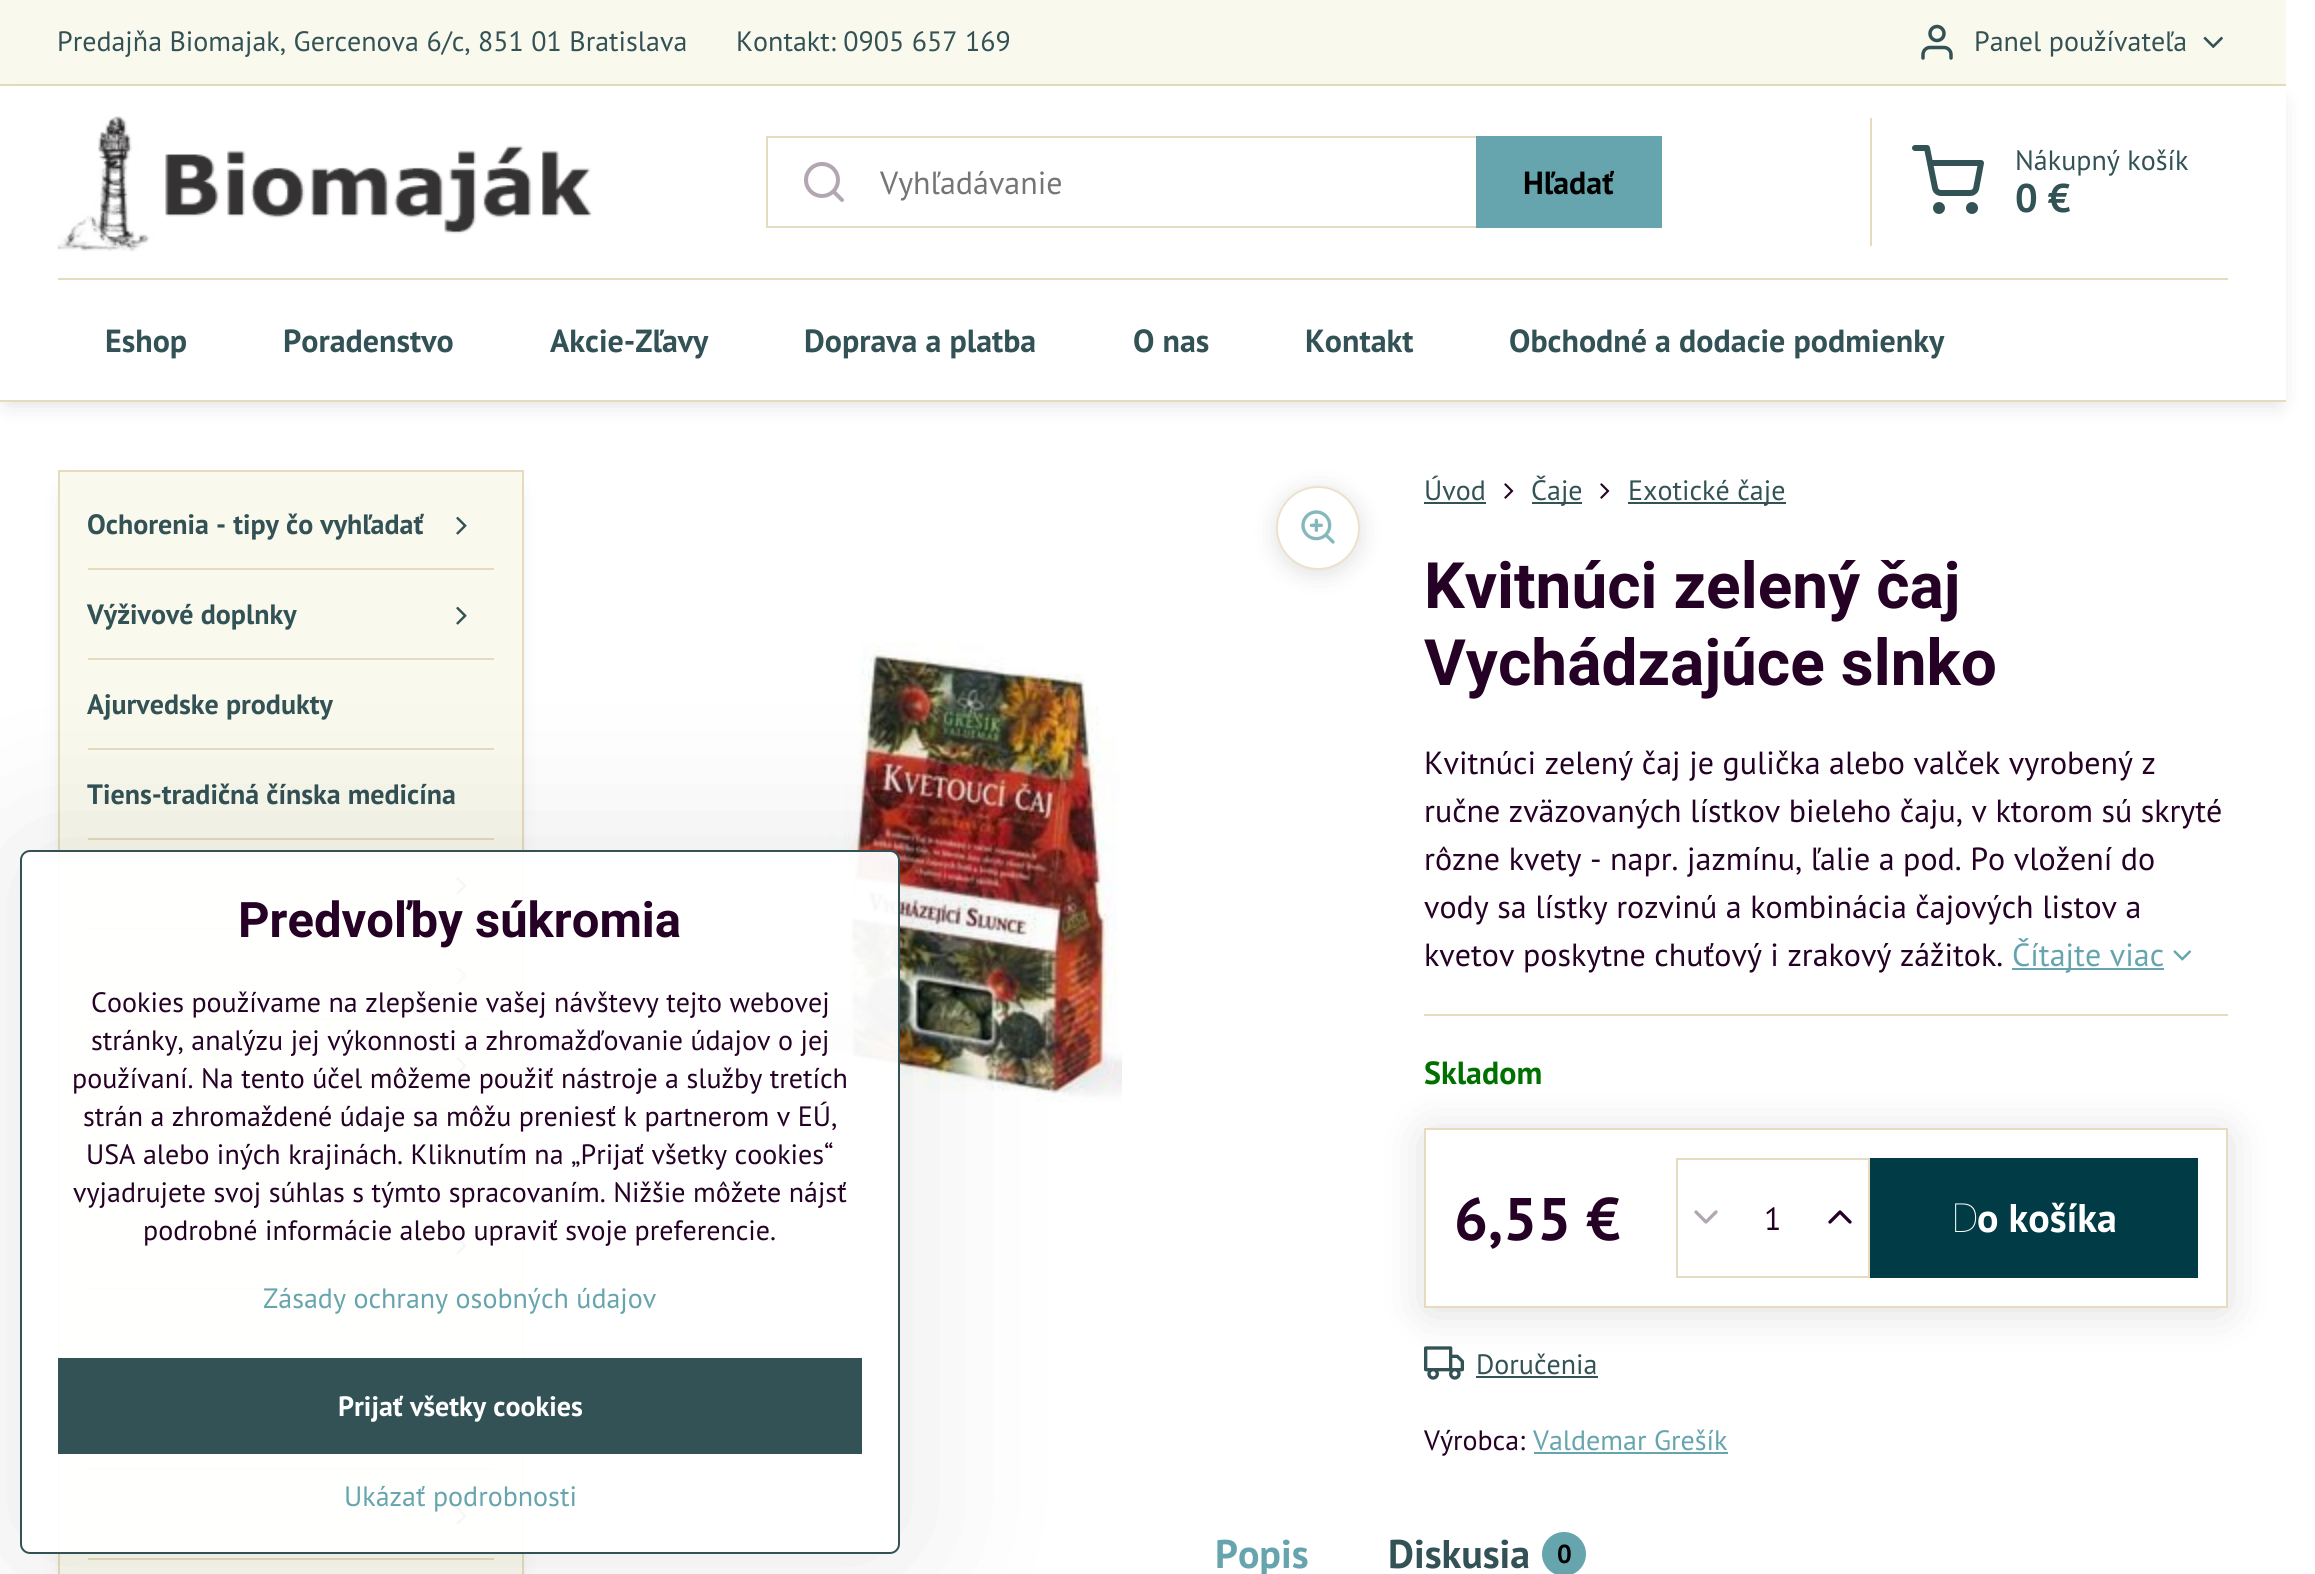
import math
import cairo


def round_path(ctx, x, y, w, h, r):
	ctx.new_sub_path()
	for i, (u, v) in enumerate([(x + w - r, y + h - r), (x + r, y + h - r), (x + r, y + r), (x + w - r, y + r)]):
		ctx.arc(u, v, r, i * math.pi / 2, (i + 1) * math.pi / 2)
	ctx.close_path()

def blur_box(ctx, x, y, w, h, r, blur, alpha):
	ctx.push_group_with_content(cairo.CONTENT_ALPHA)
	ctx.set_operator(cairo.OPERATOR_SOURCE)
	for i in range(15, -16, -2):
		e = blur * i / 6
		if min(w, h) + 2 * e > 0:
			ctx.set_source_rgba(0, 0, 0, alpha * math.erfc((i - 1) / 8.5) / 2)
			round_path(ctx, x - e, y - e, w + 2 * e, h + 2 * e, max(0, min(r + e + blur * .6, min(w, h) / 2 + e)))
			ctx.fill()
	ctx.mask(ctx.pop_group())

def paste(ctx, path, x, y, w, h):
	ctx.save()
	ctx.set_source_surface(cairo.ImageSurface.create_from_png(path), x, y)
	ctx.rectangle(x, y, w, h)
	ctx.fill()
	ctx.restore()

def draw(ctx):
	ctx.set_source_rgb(1, 1, 1)
	ctx.paint()
	ctx.set_source_rgb(0.98, 0.976, 0.929)
	ctx.rectangle(0, 0, 2286, 84)
	ctx.fill()
	ctx.set_source_rgb(0.902, 0.859, 0.745)
	ctx.rectangle(0, 84, 2286, 2)
	ctx.fill()
	ctx.select_font_face('PT Sans')
	ctx.set_font_size(28)
	ctx.set_source_rgb(0.2, 0.322, 0.337)
	ctx.move_to(57, 51)
	ctx.show_text('Predajňa Biomajak, Gercenova 6/c, 851 01 Bratislava')
	ctx.move_to(736, 51)
	ctx.show_text('Kontakt: 0905 657 169')
	paste(ctx, 'media/1.png', 1921, 24, 32, 36)
	ctx.move_to(1974, 51)
	ctx.show_text('Panel používateľa')
	paste(ctx, 'media/2.png', 2203, 36, 20, 13)
	ctx.save()
	ctx.set_fill_rule(cairo.FILL_RULE_EVEN_ODD)
	ctx.new_path()
	ctx.move_to(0, 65)
	ctx.line_to(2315, 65)
	ctx.line_to(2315, 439)
	ctx.line_to(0, 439)
	ctx.close_path()
	ctx.move_to(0, 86)
	ctx.line_to(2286, 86)
	ctx.line_to(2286, 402)
	ctx.line_to(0, 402)
	ctx.close_path()
	ctx.clip()
	ctx.set_source_rgb(0, 0, 0.078)
	blur_box(ctx, 8, 102, 2270, 300, 0, 12, 0.15)
	ctx.restore()
	paste(ctx, 'media/3.png', 57, 116, 536, 136)
	ctx.rectangle(767, 137, 894, 90)
	ctx.set_source_rgb(0.902, 0.859, 0.745)
	ctx.stroke()
	paste(ctx, 'media/4.png', 804, 162, 40, 40)
	ctx.set_font_size(32)
	ctx.set_source_rgb(0.459, 0.459, 0.459)
	ctx.move_to(880, 194)
	ctx.show_text('Vyhľadávanie')
	ctx.set_source_rgb(0.4, 0.647, 0.678)
	ctx.rectangle(1476, 136, 186, 92)
	ctx.fill()
	ctx.select_font_face('PT Sans', cairo.FONT_SLANT_NORMAL, cairo.FONT_WEIGHT_BOLD)
	ctx.set_source_rgb(0, 0, 0)
	ctx.move_to(1523, 194)
	ctx.show_text('Hľadať')
	ctx.set_source_rgb(0.902, 0.859, 0.745)
	ctx.rectangle(1870, 118, 2, 128)
	ctx.fill()
	paste(ctx, 'media/5.png', 1912, 145, 72, 69)
	ctx.select_font_face('PT Sans')
	ctx.set_font_size(28)
	ctx.set_source_rgb(0.2, 0.322, 0.337)
	ctx.move_to(2015, 170)
	ctx.show_text('Nákupný košík')
	ctx.select_font_face('PT Sans', cairo.FONT_SLANT_NORMAL, cairo.FONT_WEIGHT_BOLD)
	ctx.set_font_size(40)
	ctx.move_to(2015, 212)
	ctx.show_text('0 €')
	ctx.set_source_rgb(0.902, 0.859, 0.745)
	ctx.rectangle(0, 400, 2286, 2)
	ctx.fill()
	ctx.rectangle(58, 278, 2170, 2)
	ctx.fill()
	ctx.set_font_size(32)
	ctx.set_source_rgb(0.2, 0.322, 0.337)
	for x, y, s in [
		(105, 352, 'Eshop'),
		(283, 352, 'Poradenstvo'),
		(550, 352, 'Akcie-Zľavy'),
		(804, 352, 'Doprava a platba'),
		(1133, 352, 'O nas'),
		(1305, 352, 'Kontakt'),
		(1509, 352, 'Obchodné a dodacie podmienky'),
	]:
		ctx.move_to(x, y)
		ctx.show_text(s)
	ctx.set_source_rgb(0, 0, 0.078)
	blur_box(ctx, 74, 494, 434, 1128, 0, 16, 0.15)
	ctx.set_source_rgb(0.98, 0.976, 0.929)
	ctx.rectangle(59, 471, 464, 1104)
	ctx.fill_preserve()
	ctx.set_source_rgb(0.902, 0.859, 0.745)
	ctx.stroke()
	ctx.rectangle(88, 568, 406, 2)
	ctx.fill()
	ctx.set_font_size(28)
	ctx.set_source_rgb(0.2, 0.322, 0.337)
	ctx.move_to(87, 534)
	ctx.show_text('Ochorenia - tipy čo vyhľadať')
	paste(ctx, 'media/6.png', 456, 516, 11, 19)
	ctx.set_source_rgb(0.902, 0.859, 0.745)
	ctx.rectangle(88, 658, 406, 2)
	ctx.fill()
	ctx.set_source_rgb(0.2, 0.322, 0.337)
	ctx.move_to(87, 624)
	ctx.show_text('Výživové doplnky')
	paste(ctx, 'media/6.png', 456, 606, 11, 19)
	ctx.set_source_rgb(0.902, 0.859, 0.745)
	ctx.rectangle(88, 748, 406, 2)
	ctx.fill()
	ctx.set_source_rgb(0.2, 0.322, 0.337)
	ctx.move_to(87, 714)
	ctx.show_text('Ajurvedske produkty')
	ctx.set_source_rgb(0.902, 0.859, 0.745)
	ctx.rectangle(88, 838, 406, 2)
	ctx.fill()
	ctx.set_source_rgb(0.2, 0.322, 0.337)
	ctx.move_to(87, 804)
	ctx.show_text('Tiens-tradičná čínska medicína')
	ctx.set_source_rgb(0.902, 0.859, 0.745)
	ctx.rectangle(88, 928, 406, 2)
	ctx.fill()
	paste(ctx, 'media/6.png', 456, 876, 11, 19)
	ctx.rectangle(88, 1018, 406, 2)
	ctx.fill()
	paste(ctx, 'media/7.png', 456, 966, 11, 19)
	ctx.rectangle(88, 1108, 406, 2)
	ctx.fill()
	paste(ctx, 'media/6.png', 456, 1056, 11, 19)
	ctx.rectangle(88, 1198, 406, 2)
	ctx.fill()
	paste(ctx, 'media/6.png', 456, 1146, 11, 19)
	ctx.rectangle(88, 1288, 406, 2)
	ctx.fill()
	paste(ctx, 'media/6.png', 456, 1236, 11, 19)
	ctx.rectangle(88, 1468, 406, 2)
	ctx.fill()
	ctx.rectangle(88, 1558, 406, 2)
	ctx.fill()
	paste(ctx, 'media/6.png', 456, 1506, 11, 19)
	ctx.set_source_rgb(0.2, 0.2, 0.263)
	blur_box(ctx, 1276, 490, 84, 84, 42, 12, 0.15)
	ctx.set_source_rgb(1, 1, 1)
	ctx.arc(1318, 528, 41, 0, 2 * math.pi)
	ctx.fill_preserve()
	ctx.set_source_rgb(0.922, 0.886, 0.796)
	ctx.stroke()
	paste(ctx, 'media/8.png', 1301, 510, 34, 34)
	paste(ctx, 'media/9.png', 828, 642, 294, 460)
	ctx.select_font_face('PT Sans')
	ctx.set_source_rgb(0.2, 0.322, 0.337)
	ctx.move_to(1424, 500)
	ctx.show_text('Úvod')
	ctx.rectangle(1424, 502, 62, 2)
	ctx.fill()
	paste(ctx, 'media/10.png', 1504, 483, 10, 16)
	ctx.rectangle(1532, 502, 50, 2)
	ctx.fill()
	ctx.move_to(1531, 500)
	ctx.show_text('Čaje')
	paste(ctx, 'media/10.png', 1600, 483, 10, 16)
	ctx.rectangle(1628, 502, 158, 2)
	ctx.fill()
	ctx.move_to(1628, 500)
	ctx.show_text('Exotické čaje')
	ctx.select_font_face('Roboto', cairo.FONT_SLANT_NORMAL, cairo.FONT_WEIGHT_BOLD)
	ctx.set_font_size(64)
	ctx.set_source_rgb(0.149, 0.004, 0.149)
	ctx.move_to(1424, 608)
	ctx.show_text('Kvitnúci zelený čaj')
	ctx.move_to(1424, 685)
	ctx.show_text('Vychádzajúce slnko')
	ctx.select_font_face('PT Sans')
	ctx.set_font_size(32)
	for x, y, s in [
		(1424, 774, 'Kvitnúci zelený čaj je gulička alebo valček vyrobený z'),
		(1424, 822, 'ručne zväzovaných lístkov bieleho čaju, v ktorom sú skryté'),
		(1424, 870, 'rôzne kvety - napr. jazmínu, ľalie a pod. Po vložení do'),
		(1424, 918, 'vody sa lístky rozvinú a kombinácia čajových listov a'),
		(1424, 966, 'kvetov poskytne chuťový i zrakový zážitok.'),
	]:
		ctx.move_to(x, y)
		ctx.show_text(s)
	ctx.set_source_rgb(0.4, 0.647, 0.678)
	ctx.rectangle(2012, 968, 152, 2)
	ctx.fill()
	ctx.move_to(2012, 966)
	ctx.show_text('Čítajte viac')
	paste(ctx, 'media/11.png', 2173, 950, 19, 11)
	ctx.set_source_rgb(0.902, 0.859, 0.745)
	ctx.rectangle(1424, 1014, 804, 2)
	ctx.fill()
	ctx.select_font_face('PT Sans', cairo.FONT_SLANT_NORMAL, cairo.FONT_WEIGHT_BOLD)
	ctx.set_source_rgb(0, 0.439, 0)
	ctx.move_to(1424, 1084)
	ctx.show_text('Skladom')
	paste(ctx, 'media/14.png', 1424, 1346, 40, 34)
	ctx.set_source_rgb(0.2, 0.322, 0.337)
	ctx.rectangle(1476, 1376, 122, 2)
	ctx.fill()
	ctx.save()
	ctx.set_fill_rule(cairo.FILL_RULE_EVEN_ODD)
	ctx.new_path()
	ctx.move_to(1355, 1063)
	ctx.line_to(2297, 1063)
	ctx.line_to(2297, 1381)
	ctx.line_to(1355, 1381)
	ctx.close_path()
	ctx.move_to(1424, 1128)
	ctx.line_to(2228, 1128)
	ctx.line_to(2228, 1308)
	ctx.line_to(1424, 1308)
	ctx.close_path()
	ctx.clip()
	ctx.set_source_rgb(0, 0, 0.078)
	blur_box(ctx, 1428, 1136, 796, 172, 0, 24, 0.15)
	ctx.restore()
	ctx.rectangle(1425, 1129, 802, 178)
	ctx.set_source_rgb(0.902, 0.859, 0.745)
	ctx.stroke()
	ctx.set_font_size(60)
	ctx.set_source_rgb(0.149, 0.004, 0.149)
	ctx.move_to(1454, 1240)
	ctx.show_text('6,55 €')
	ctx.rectangle(1677, 1159, 192, 118)
	ctx.set_source_rgb(0.902, 0.859, 0.745)
	ctx.stroke()
	paste(ctx, 'media/12.png', 1694, 1210, 24, 14)
	ctx.select_font_face('PT Sans')
	ctx.set_font_size(32)
	ctx.set_source_rgb(0.149, 0.004, 0.149)
	ctx.move_to(1764, 1230)
	ctx.show_text('1')
	paste(ctx, 'media/13.png', 1828, 1210, 24, 14)
	ctx.set_source_rgb(0, 0.231, 0.275)
	ctx.rectangle(1870, 1158, 328, 120)
	ctx.fill()
	ctx.select_font_face('Noto Sans Thin')
	ctx.set_font_size(40)
	ctx.set_source_rgb(1, 1, 1)
	ctx.move_to(1951, 1232)
	ctx.show_text('D')
	ctx.select_font_face('PT Sans', cairo.FONT_SLANT_NORMAL, cairo.FONT_WEIGHT_BOLD)
	ctx.move_to(1977, 1232)
	ctx.show_text('o košíka')
	ctx.select_font_face('PT Sans')
	ctx.set_font_size(28)
	ctx.set_source_rgb(0.2, 0.322, 0.337)
	ctx.move_to(1476, 1374)
	ctx.show_text('Doručenia')
	ctx.set_source_rgb(0.149, 0.004, 0.149)
	ctx.move_to(1424, 1450)
	ctx.show_text('Výrobca:')
	ctx.set_source_rgb(0.4, 0.647, 0.678)
	ctx.move_to(1533, 1450)
	ctx.show_text('Valdemar Grešík')
	ctx.rectangle(1534, 1452, 194, 2)
	ctx.fill()
	ctx.select_font_face('PT Sans', cairo.FONT_SLANT_NORMAL, cairo.FONT_WEIGHT_BOLD)
	ctx.set_font_size(40)
	ctx.move_to(1215, 1568)
	ctx.show_text('Popis')
	ctx.set_source_rgb(0.2, 0.322, 0.337)
	ctx.move_to(1388, 1568)
	ctx.show_text('Diskusia')
	ctx.set_source_rgb(0.4, 0.647, 0.678)
	ctx.new_path()
	ctx.arc(1564, 1554, 22, 0, 2 * math.pi)
	ctx.fill()
	ctx.set_font_size(26)
	ctx.set_source_rgb(0, 0, 0)
	ctx.move_to(1557, 1563)
	ctx.show_text('0')
	ctx.save()
	ctx.set_fill_rule(cairo.FILL_RULE_EVEN_ODD)
	ctx.new_path()
	ctx.move_to(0, 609)
	ctx.line_to(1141, 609)
	ctx.line_to(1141, 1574)
	ctx.line_to(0, 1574)
	ctx.close_path()
	ctx.move_to(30, 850)
	ctx.line_to(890, 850)
	ctx.curve_to(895.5, 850, 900, 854.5, 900, 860)
	ctx.line_to(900, 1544)
	ctx.curve_to(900, 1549.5, 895.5, 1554, 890, 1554)
	ctx.line_to(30, 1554)
	ctx.curve_to(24.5, 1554, 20, 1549.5, 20, 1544)
	ctx.line_to(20, 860)
	ctx.curve_to(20, 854.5, 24.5, 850, 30, 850)
	ctx.close_path()
	ctx.clip()
	ctx.set_source_rgb(0, 0, 0)
	blur_box(ctx, 20, 850, 880, 704, 10, 80, 0.1)
	ctx.restore()
	ctx.set_source_rgba(1, 1, 1, 0.95)
	round_path(ctx, 21, 851, 878, 702, 9)
	ctx.fill_preserve()
	ctx.set_source_rgb(0.2, 0.322, 0.337)
	ctx.stroke()
	ctx.select_font_face('Roboto', cairo.FONT_SLANT_NORMAL, cairo.FONT_WEIGHT_BOLD)
	ctx.set_font_size(49)
	ctx.set_source_rgb(0.149, 0.004, 0.149)
	ctx.move_to(238, 937)
	ctx.show_text('Predvoľby súkromia')
	ctx.select_font_face('PT Sans')
	ctx.set_font_size(28)
	for x, y, s in [
		(91, 1012, 'Cookies používame na zlepšenie vašej návštevy tejto webovej'),
		(91, 1050, 'stránky, analýzu jej výkonnosti a zhromažďovanie údajov o jej'),
		(72, 1088, 'používaní. Na tento účel môžeme použiť nástroje a služby tretích'),
		(83, 1126, 'strán a zhromaždené údaje sa môžu preniesť k partnerom v EÚ,'),
		(86, 1164, 'USA alebo iných krajinách. Kliknutím na „Prijať všetky cookies“'),
		(73, 1202, 'vyjadrujete svoj súhlas s týmto spracovaním. Nižšie môžete nájsť'),
		(143, 1240, 'podrobné informácie alebo upraviť svoje preferencie.'),
	]:
		ctx.move_to(x, y)
		ctx.show_text(s)
	ctx.set_source_rgb(0.4, 0.647, 0.678)
	ctx.move_to(263, 1308)
	ctx.show_text('Zásady ochrany osobných údajov')
	ctx.set_source_rgb(0.2, 0.322, 0.337)
	ctx.rectangle(58, 1358, 804, 96)
	ctx.fill()
	ctx.select_font_face('PT Sans', cairo.FONT_SLANT_NORMAL, cairo.FONT_WEIGHT_BOLD)
	ctx.set_source_rgb(1, 1, 1)
	ctx.move_to(338, 1416)
	ctx.show_text('Prijať všetky cookies')
	ctx.select_font_face('PT Sans')
	ctx.set_source_rgb(0.4, 0.647, 0.678)
	ctx.move_to(344, 1506)
	ctx.show_text('Ukázať podrobnosti')


surface = cairo.ImageSurface(cairo.FORMAT_RGB24, 2315, 1574)
ctx = cairo.Context(surface)
options = cairo.FontOptions()
options.set_hint_metrics(cairo.HINT_METRICS_OFF)
options.set_hint_style(cairo.HINT_STYLE_NONE)
ctx.set_font_options(options)
ctx.set_miter_limit(4)
draw(ctx)
surface.write_to_png('image.png')
